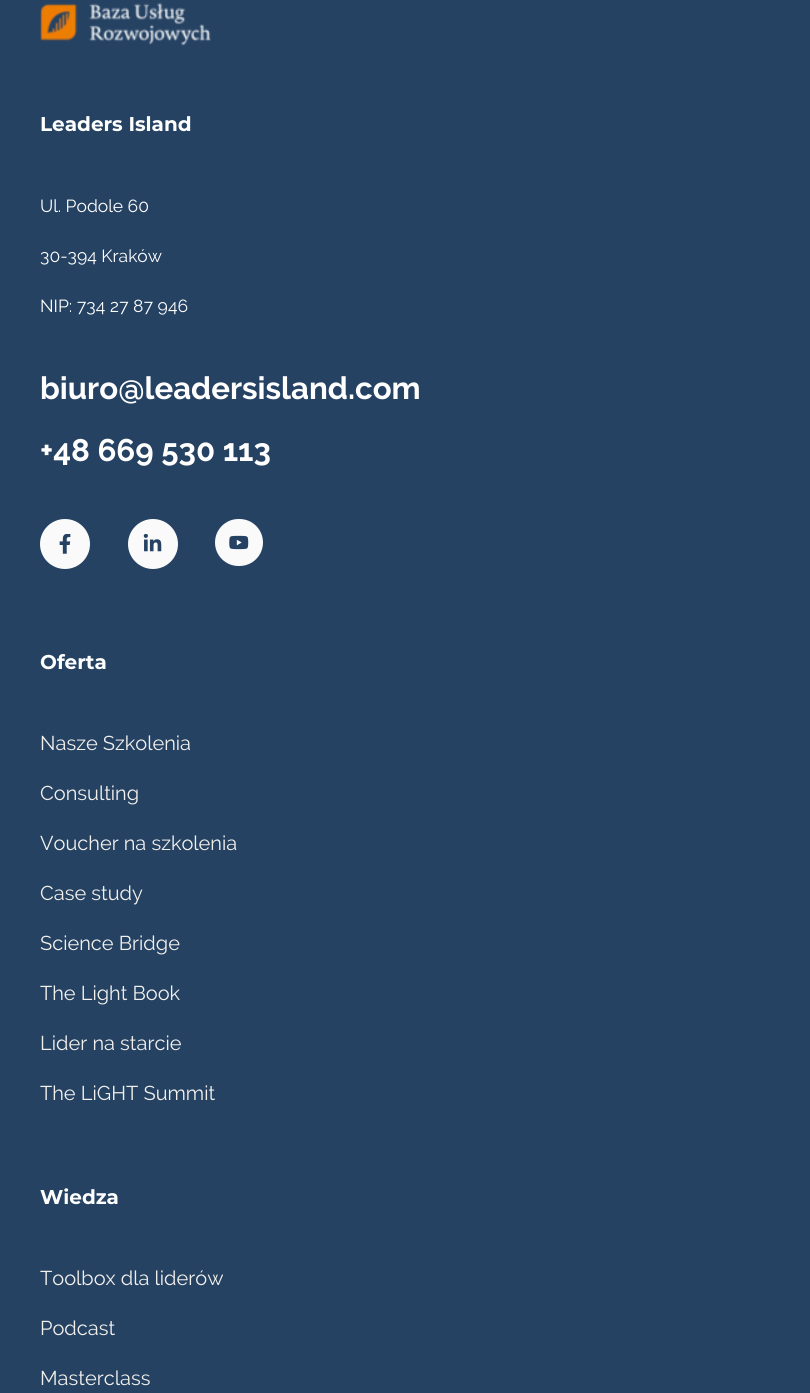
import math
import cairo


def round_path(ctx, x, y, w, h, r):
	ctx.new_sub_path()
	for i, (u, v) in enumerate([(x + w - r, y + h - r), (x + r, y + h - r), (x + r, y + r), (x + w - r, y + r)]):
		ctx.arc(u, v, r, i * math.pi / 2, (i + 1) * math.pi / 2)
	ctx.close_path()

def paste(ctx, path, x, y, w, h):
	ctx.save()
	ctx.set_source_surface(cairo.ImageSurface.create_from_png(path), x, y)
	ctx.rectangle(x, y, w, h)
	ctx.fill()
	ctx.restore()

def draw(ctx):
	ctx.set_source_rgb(0.145, 0.259, 0.388)
	ctx.paint()
	paste(ctx, 'media/1.png', 40, 2, 171, 44)
	ctx.select_font_face('Montserrat', cairo.FONT_SLANT_NORMAL, cairo.FONT_WEIGHT_BOLD)
	ctx.set_font_size(20)
	ctx.set_source_rgb(1, 1, 1)
	ctx.move_to(40, 131)
	ctx.show_text('Leaders Island')
	ctx.select_font_face('Raleway')
	ctx.set_font_size(17.5)
	for x, y, s in [
		(40, 212, 'Ul. Podole 60'),
		(40, 262, '30-394 Kraków'),
		(40, 312, 'NIP: 734 27 87 946'),
	]:
		ctx.move_to(x, y)
		ctx.show_text(s)
	ctx.select_font_face('Raleway', cairo.FONT_SLANT_NORMAL, cairo.FONT_WEIGHT_BOLD)
	ctx.set_font_size(31.25)
	ctx.move_to(40, 399)
	ctx.show_text('biuro@leadersisland.com')
	ctx.move_to(40, 461)
	ctx.show_text('+48 669 530 113')
	ctx.set_source_rgb(0.98, 0.98, 0.98)
	ctx.new_path()
	ctx.arc(65, 544, 25, 0, 2 * math.pi)
	ctx.fill()
	paste(ctx, 'media/2.png', 59, 534, 12, 20)
	ctx.arc(153, 544, 25, 0, 2 * math.pi)
	ctx.fill()
	paste(ctx, 'media/3.png', 143, 534, 19, 18)
	round_path(ctx, 215, 519, 48, 47, 23.5)
	ctx.fill()
	paste(ctx, 'media/4.png', 229, 535, 20, 15)
	ctx.select_font_face('Montserrat', cairo.FONT_SLANT_NORMAL, cairo.FONT_WEIGHT_BOLD)
	ctx.set_font_size(20)
	ctx.set_source_rgb(1, 1, 1)
	ctx.move_to(40, 669)
	ctx.show_text('Oferta')
	ctx.select_font_face('Raleway')
	ctx.set_source_rgb(0.949, 0.941, 0.922)
	for x, y, s in [
		(40, 750, 'Nasze Szkolenia'),
		(40, 800, 'Consulting'),
		(40, 850, 'Voucher na szkolenia'),
		(40, 900, 'Case study'),
		(40, 950, 'Science Bridge'),
		(40, 1000, 'The Light Book'),
		(40, 1050, 'Lider na starcie'),
		(40, 1100, 'The LiGHT Summit'),
	]:
		ctx.move_to(x, y)
		ctx.show_text(s)
	ctx.select_font_face('Montserrat', cairo.FONT_SLANT_NORMAL, cairo.FONT_WEIGHT_BOLD)
	ctx.set_source_rgb(1, 1, 1)
	ctx.move_to(40, 1204)
	ctx.show_text('Wiedza')
	ctx.select_font_face('Raleway')
	ctx.set_source_rgb(0.949, 0.941, 0.922)
	for x, y, s in [
		(40, 1285, 'Toolbox dla liderów'),
		(40, 1335, 'Podcast'),
		(40, 1385, 'Masterclass'),
	]:
		ctx.move_to(x, y)
		ctx.show_text(s)


surface = cairo.ImageSurface(cairo.FORMAT_RGB24, 810, 1393)
ctx = cairo.Context(surface)
options = cairo.FontOptions()
options.set_hint_metrics(cairo.HINT_METRICS_OFF)
options.set_hint_style(cairo.HINT_STYLE_NONE)
ctx.set_font_options(options)
ctx.set_miter_limit(4)
draw(ctx)
surface.write_to_png('image.png')
